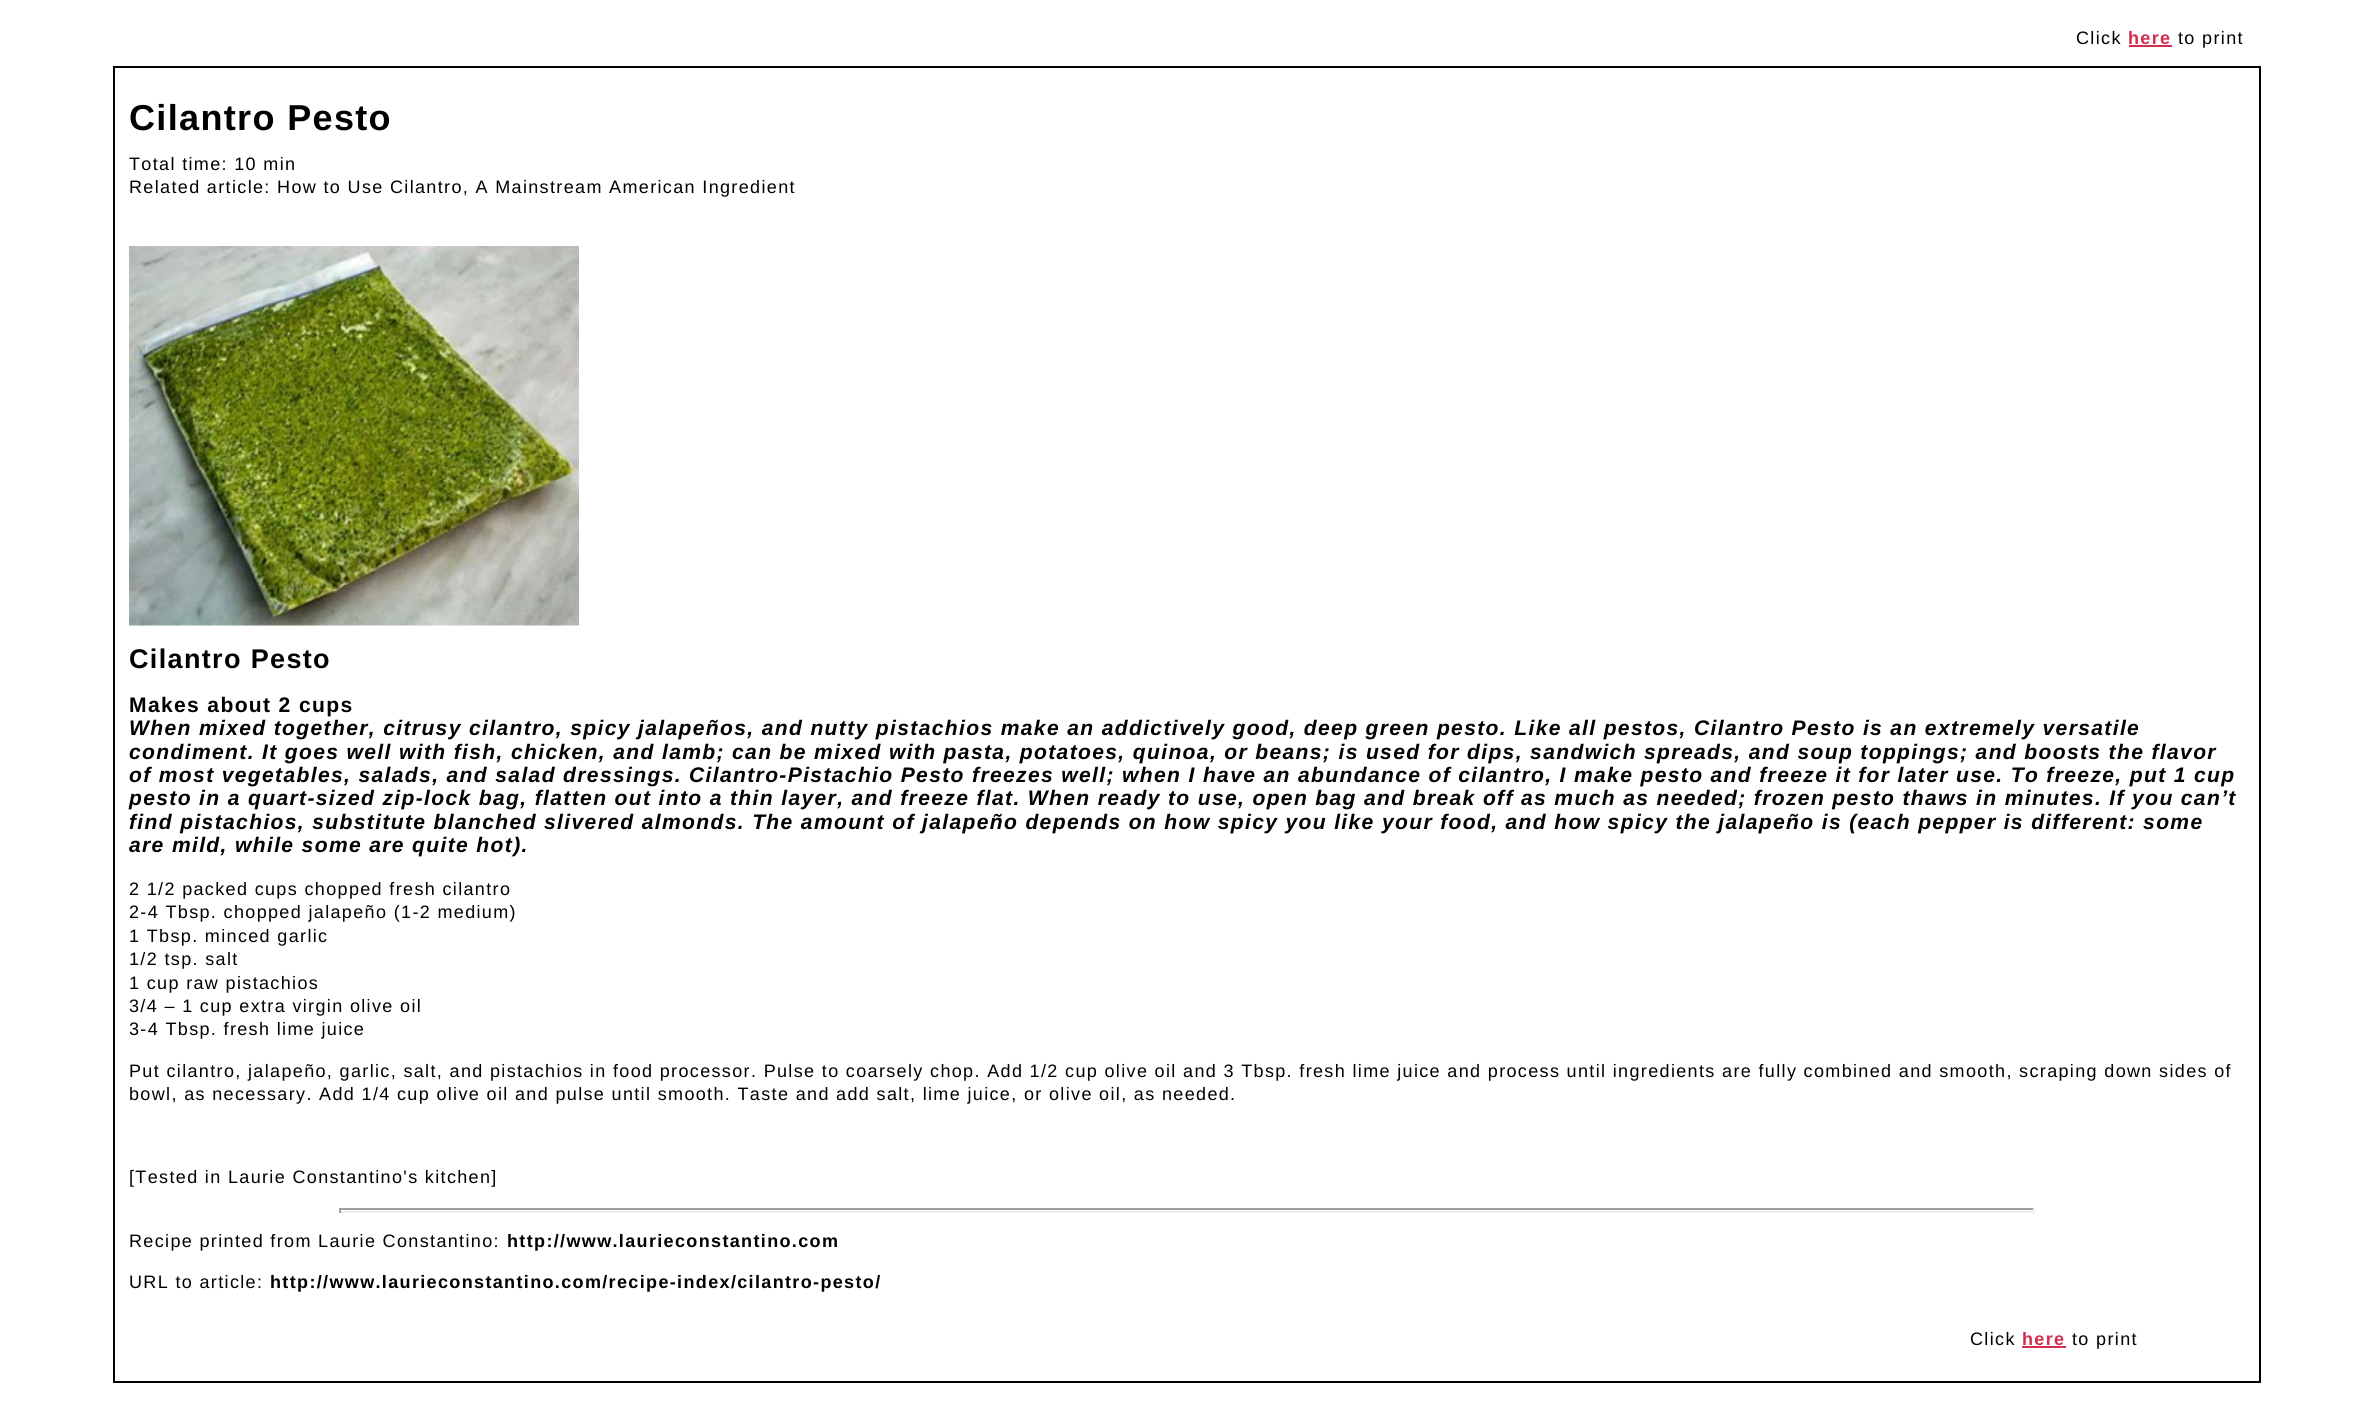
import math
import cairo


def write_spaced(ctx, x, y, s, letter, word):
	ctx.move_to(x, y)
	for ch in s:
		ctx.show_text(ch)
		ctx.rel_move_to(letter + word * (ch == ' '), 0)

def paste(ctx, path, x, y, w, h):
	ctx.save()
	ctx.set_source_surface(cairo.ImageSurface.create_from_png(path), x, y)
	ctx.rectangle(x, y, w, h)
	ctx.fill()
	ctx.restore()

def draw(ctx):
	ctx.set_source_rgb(1, 1, 1)
	ctx.paint()
	ctx.select_font_face('Liberation Sans')
	ctx.set_font_size(18)
	ctx.set_source_rgb(0, 0, 0)
	write_spaced(ctx, 2076, 44, 'Click', 1.35, 0)
	ctx.select_font_face('Liberation Sans', cairo.FONT_SLANT_NORMAL, cairo.FONT_WEIGHT_BOLD)
	ctx.set_source_rgb(0.835, 0.169, 0.31)
	write_spaced(ctx, 2128, 44, 'here', 1.35, 0)
	ctx.rectangle(2129, 45, 43, 2)
	ctx.fill()
	ctx.select_font_face('Liberation Sans')
	ctx.set_source_rgb(0, 0, 0)
	write_spaced(ctx, 2178, 44, 'to print', 1.35, 0)
	ctx.rectangle(114, 67, 2146, 1315)
	ctx.stroke()
	ctx.select_font_face('Liberation Sans', cairo.FONT_SLANT_NORMAL, cairo.FONT_WEIGHT_BOLD)
	ctx.set_font_size(36)
	write_spaced(ctx, 129, 130, 'Cilantro Pesto', 1.35, 0)
	ctx.select_font_face('Liberation Sans')
	ctx.set_font_size(18)
	write_spaced(ctx, 129, 170, 'Total time: 10 min', 1.35, 0)
	write_spaced(ctx, 129, 193, 'Related article: How to Use Cilantro, A Mainstream American Ingredient', 1.35, 0)
	paste(ctx, 'media/1.png', 129, 246, 450, 380)
	ctx.select_font_face('Liberation Sans', cairo.FONT_SLANT_NORMAL, cairo.FONT_WEIGHT_BOLD)
	ctx.set_font_size(27)
	write_spaced(ctx, 129, 668, 'Cilantro Pesto', 1.35, 0)
	ctx.set_font_size(21.06)
	write_spaced(ctx, 129, 712, 'Makes about 2 cups', 1.35, 0)
	ctx.select_font_face('Liberation Sans', cairo.FONT_SLANT_ITALIC, cairo.FONT_WEIGHT_BOLD)
	for x, y, s in [
		(129, 735, 'When mixed together, citrusy cilantro, spicy jalapeños, and nutty pistachios make an addictively good, deep green pesto. Like all pestos, Cilantro Pesto is an extremely versatile'),
		(129, 759, 'condiment. It goes well with fish, chicken, and lamb; can be mixed with pasta, potatoes, quinoa, or beans; is used for dips, sandwich spreads, and soup toppings; and boosts the flavor'),
		(129, 782, 'of most vegetables, salads, and salad dressings.'),
		(689, 782, 'Cilantro-Pistachio Pesto freezes well; when I have an abundance of cilantro, I make pesto and freeze it for later use. To freeze, put 1 cup'),
		(129, 805, 'pesto in a quart-sized zip-lock bag, flatten out into a thin layer, and freeze flat. When ready to use, open bag and break off as much as needed; frozen pesto thaws in minutes. If you can’t'),
		(129, 829, 'find pistachios, substitute blanched slivered almonds. The amount of jalapeño depends on how spicy you like your food, and how spicy the jalapeño is (each pepper is different: some'),
		(129, 852, 'are mild, while some are quite hot).'),
	]:
		write_spaced(ctx, x, y, s, 1.35, 0)
	ctx.select_font_face('Liberation Sans')
	ctx.set_font_size(18)
	for x, y, s in [
		(129, 895, '2 1/2 packed cups chopped fresh cilantro'),
		(129, 918, '2-4 Tbsp. chopped jalapeño (1-2 medium)'),
		(129, 942, '1 Tbsp. minced garlic'),
		(129, 965, '1/2 tsp. salt'),
		(129, 989, '1 cup raw pistachios'),
		(129, 1012, '3/4 – 1 cup extra virgin olive oil'),
		(129, 1035, '3-4 Tbsp. fresh lime juice'),
		(129, 1077, 'Put cilantro, jalapeño, garlic, salt, and pistachios in food processor. Pulse to coarsely chop. Add 1/2 cup olive oil and 3 Tbsp. fresh lime juice and process until ingredients are fully combined and smooth, scraping down sides of'),
		(129, 1100, 'bowl, as necessary. Add 1/4 cup olive oil and pulse until smooth. Taste and add salt, lime juice, or olive oil, as needed.'),
		(129, 1183, '[Tested in Laurie Constantino\'s kitchen]'),
	]:
		write_spaced(ctx, x, y, s, 1.35, 0)
	ctx.set_source_rgb(0.624, 0.624, 0.624)
	ctx.rectangle(339, 1208, 1695, 2)
	ctx.fill()
	ctx.set_source_rgb(0.933, 0.933, 0.933)
	ctx.rectangle(2033, 1208, 2, 5)
	ctx.rectangle(339, 1211, 1695, 2)
	ctx.fill()
	ctx.set_source_rgb(0.624, 0.624, 0.624)
	ctx.rectangle(339, 1208, 2, 5)
	ctx.fill()
	ctx.set_source_rgb(0, 0, 0)
	write_spaced(ctx, 129, 1247, 'Recipe printed from Laurie Constantino:', 1.35, 0)
	ctx.select_font_face('Liberation Sans', cairo.FONT_SLANT_NORMAL, cairo.FONT_WEIGHT_BOLD)
	write_spaced(ctx, 507, 1247, 'http://www.laurieconstantino.com', 1.35, 0)
	ctx.select_font_face('Liberation Sans')
	write_spaced(ctx, 129, 1288, 'URL to article:', 1.35, 0)
	ctx.select_font_face('Liberation Sans', cairo.FONT_SLANT_NORMAL, cairo.FONT_WEIGHT_BOLD)
	write_spaced(ctx, 270, 1288, 'http://www.laurieconstantino.com/recipe-index/cilantro-pesto/', 1.35, 0)
	ctx.select_font_face('Liberation Sans')
	write_spaced(ctx, 1970, 1345, 'Click', 1.35, 0)
	ctx.select_font_face('Liberation Sans', cairo.FONT_SLANT_NORMAL, cairo.FONT_WEIGHT_BOLD)
	ctx.set_source_rgb(0.835, 0.169, 0.31)
	write_spaced(ctx, 2022, 1345, 'here', 1.35, 0)
	ctx.rectangle(2022, 1346, 44, 2)
	ctx.fill()
	ctx.select_font_face('Liberation Sans')
	ctx.set_source_rgb(0, 0, 0)
	write_spaced(ctx, 2072, 1345, 'to print', 1.35, 0)


surface = cairo.ImageSurface(cairo.FORMAT_RGB24, 2372, 1425)
ctx = cairo.Context(surface)
options = cairo.FontOptions()
options.set_hint_metrics(cairo.HINT_METRICS_OFF)
options.set_hint_style(cairo.HINT_STYLE_NONE)
ctx.set_font_options(options)
ctx.set_miter_limit(4)
draw(ctx)
surface.write_to_png('image.png')
